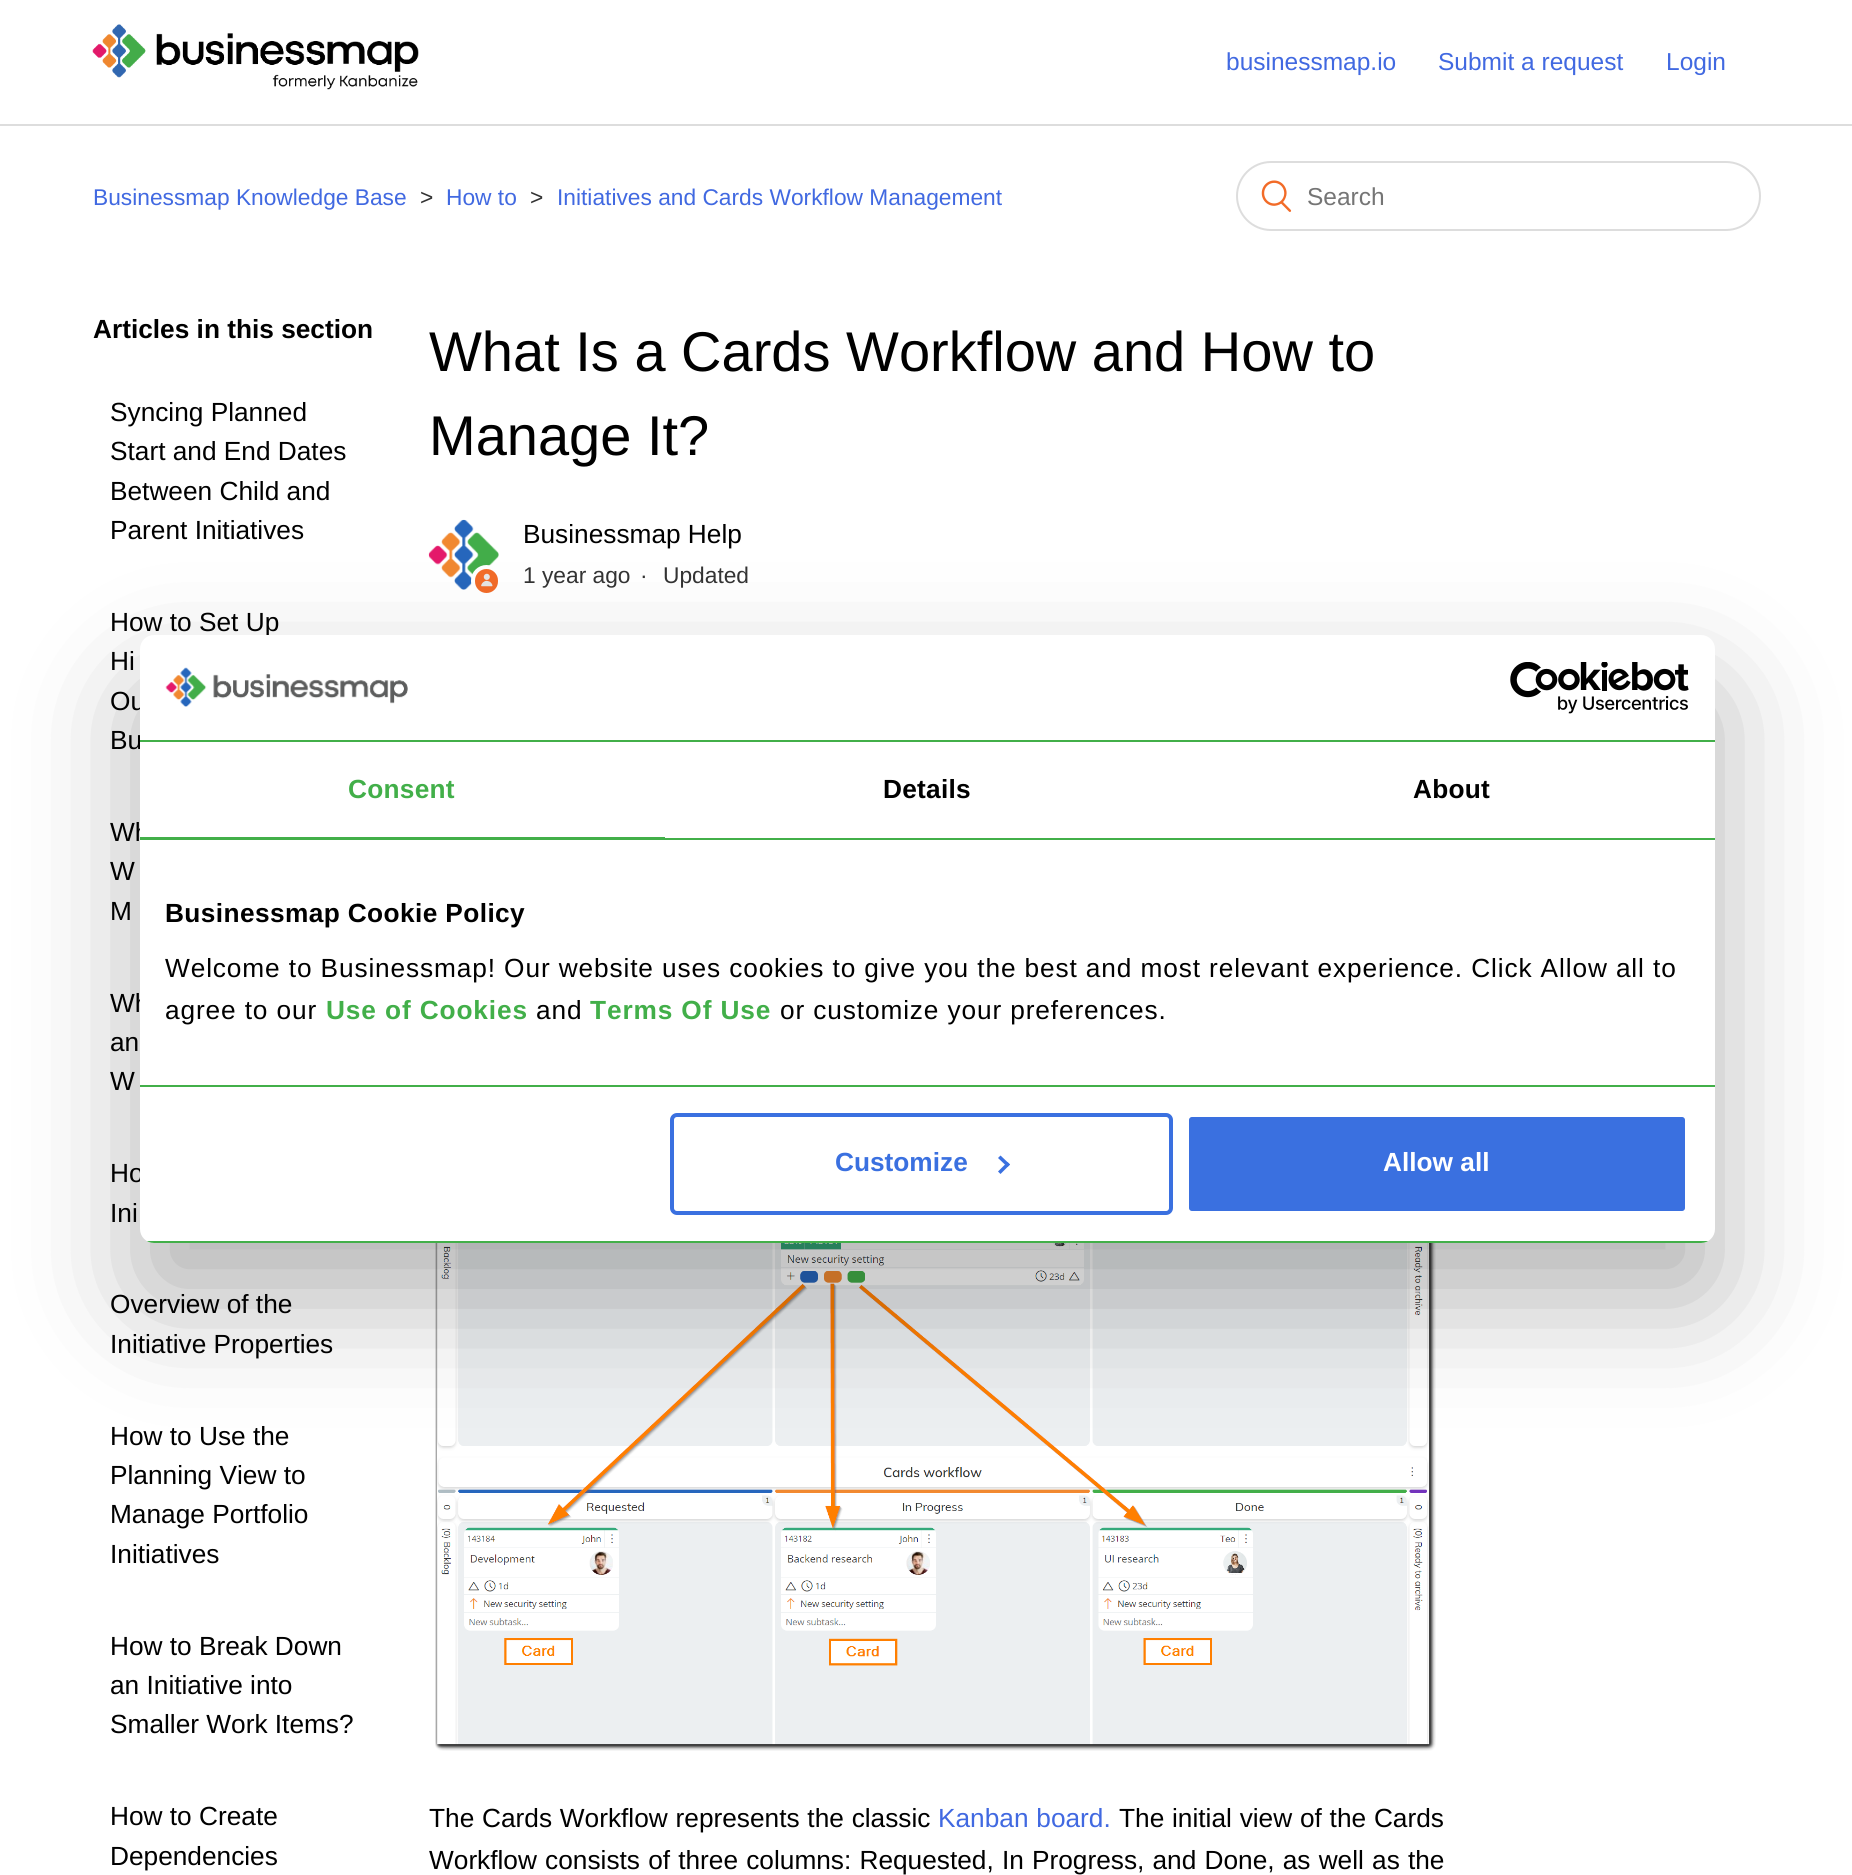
import math
import cairo


def write_spaced(ctx, x, y, s, letter, word):
	ctx.move_to(x, y)
	for ch in s:
		ctx.show_text(ch)
		ctx.rel_move_to(letter + word * (ch == ' '), 0)

def round_path(ctx, x, y, w, h, r):
	ctx.new_sub_path()
	for i, (u, v) in enumerate([(x + w - r, y + h - r), (x + r, y + h - r), (x + r, y + r), (x + w - r, y + r)]):
		ctx.arc(u, v, r, i * math.pi / 2, (i + 1) * math.pi / 2)
	ctx.close_path()

def blur_box(ctx, x, y, w, h, r, blur, alpha):
	ctx.push_group_with_content(cairo.CONTENT_ALPHA)
	ctx.set_operator(cairo.OPERATOR_SOURCE)
	for i in range(15, -16, -2):
		e = blur * i / 6
		if min(w, h) + 2 * e > 0:
			ctx.set_source_rgba(0, 0, 0, alpha * math.erfc((i - 1) / 8.5) / 2)
			round_path(ctx, x - e, y - e, w + 2 * e, h + 2 * e, max(0, min(r + e + blur * .6, min(w, h) / 2 + e)))
			ctx.fill()
	ctx.mask(ctx.pop_group())

def paste(ctx, path, x, y, w, h):
	ctx.save()
	ctx.set_source_surface(cairo.ImageSurface.create_from_png(path), x, y)
	ctx.rectangle(x, y, w, h)
	ctx.fill()
	ctx.restore()

def draw(ctx):
	ctx.set_source_rgb(1, 1, 1)
	ctx.paint()
	paste(ctx, 'media/1.png', 92, 24, 327, 66)
	ctx.select_font_face('Liberation Sans')
	ctx.set_font_size(24.5)
	ctx.set_source_rgb(0.255, 0.412, 0.882)
	for x, y, s in [
		(1226, 70, 'businessmap.io'),
		(1438, 70, 'Submit a request'),
		(1666, 70, 'Login'),
	]:
		ctx.move_to(x, y)
		ctx.show_text(s)
	ctx.set_source_rgb(0.867, 0.867, 0.867)
	ctx.rectangle(0, 124, 1852, 2)
	ctx.fill()
	ctx.set_font_size(22.75)
	ctx.set_source_rgb(0.255, 0.412, 0.882)
	ctx.move_to(93, 205)
	ctx.show_text('Businessmap Knowledge Base')
	ctx.set_source_rgb(0.2, 0.2, 0.2)
	ctx.move_to(420, 205)
	ctx.show_text('>')
	ctx.set_source_rgb(0.255, 0.412, 0.882)
	ctx.move_to(446, 205)
	ctx.show_text('How to')
	ctx.set_source_rgb(0.2, 0.2, 0.2)
	ctx.move_to(530, 205)
	ctx.show_text('>')
	ctx.set_source_rgb(0.255, 0.412, 0.882)
	ctx.move_to(557, 205)
	ctx.show_text('Initiatives and Cards Workflow Management')
	round_path(ctx, 1237, 162, 523, 68, 34)
	ctx.set_source_rgb(0.867, 0.867, 0.867)
	ctx.stroke()
	paste(ctx, 'media/2.png', 1261, 180, 31, 32)
	ctx.set_font_size(24.5)
	ctx.set_source_rgb(0.459, 0.459, 0.459)
	ctx.move_to(1307, 205)
	ctx.show_text('Search')
	ctx.select_font_face('Liberation Sans', cairo.FONT_SLANT_NORMAL, cairo.FONT_WEIGHT_BOLD)
	ctx.set_font_size(26.25)
	ctx.set_source_rgb(0, 0, 0)
	ctx.move_to(93, 338)
	ctx.show_text('Articles in this section')
	ctx.select_font_face('Liberation Sans')
	for x, y, s in [
		(110, 421, 'Syncing Planned'),
		(110, 460, 'Start and End Dates'),
		(110, 500, 'Between Child and'),
		(110, 539, 'Parent Initiatives'),
		(110, 631, 'How to Set Up'),
		(110, 670, 'Hi'),
		(110, 710, 'Ou'),
		(110, 749, 'Bu'),
		(110, 841, 'Wh'),
		(110, 880, 'W'),
		(110, 920, 'M'),
		(110, 1012, 'Wh'),
		(110, 1051, 'an'),
		(110, 1090, 'W'),
		(110, 1182, 'Ho'),
		(110, 1222, 'Ini'),
		(110, 1313, 'Overview of the'),
		(110, 1353, 'Initiative Properties'),
		(110, 1445, 'How to Use the'),
		(110, 1484, 'Planning View to'),
		(110, 1523, 'Manage Portfolio'),
		(110, 1563, 'Initiatives'),
		(110, 1655, 'How to Break Down'),
		(110, 1694, 'an Initiative into'),
		(110, 1733, 'Smaller Work Items?'),
		(110, 1825, 'How to Create'),
		(110, 1865, 'Dependencies'),
	]:
		ctx.move_to(x, y)
		ctx.show_text(s)
	ctx.set_font_size(56)
	ctx.move_to(429, 371)
	ctx.show_text('What Is a Cards Workflow and How to')
	ctx.move_to(429, 455)
	ctx.show_text('Manage It?')
	paste(ctx, 'media/3.png', 428, 519, 71, 71)
	ctx.set_source_rgb(0.949, 0.42, 0.157)
	round_path(ctx, 473, 567, 27, 28, 13.5)
	ctx.fill_preserve()
	ctx.set_source_rgb(1, 1, 1)
	ctx.set_line_width(4)
	ctx.stroke()
	paste(ctx, 'media/4.png', 481, 573, 12, 14)
	ctx.set_font_size(26.25)
	ctx.set_source_rgb(0, 0, 0)
	ctx.move_to(523, 543)
	ctx.show_text('Businessmap Help')
	ctx.set_font_size(22.75)
	ctx.set_source_rgb(0.2, 0.2, 0.2)
	for x, y, s in [
		(523, 583, '1 year ago'),
		(640, 583, '·'),
		(663, 583, 'Updated'),
	]:
		ctx.move_to(x, y)
		ctx.show_text(s)
	paste(ctx, 'media/5.png', 435, 1243, 1001, 508)
	ctx.set_font_size(26.25)
	ctx.set_source_rgb(0, 0, 0)
	write_spaced(ctx, 429, 1827, 'The Cards Workflow represents the classic', 0, 0.5)
	ctx.set_source_rgb(0.255, 0.412, 0.882)
	write_spaced(ctx, 938, 1827, 'Kanban board.', 0, 0.5)
	ctx.set_source_rgb(0, 0, 0)
	write_spaced(ctx, 1119, 1827, 'The initial view of the Cards', 0, 0.5)
	write_spaced(ctx, 429, 1869, 'Workflow consists of three columns: Requested, In Progress, and Done, as well as the', 0, 0.9)
	ctx.set_source_rgb(0, 0, 0)
	blur_box(ctx, 140, 691, 1575, 608, 14, 59.5, 0.3)
	ctx.set_source_rgb(1, 1, 1)
	round_path(ctx, 140, 635, 1575, 608, 14)
	ctx.fill()
	ctx.set_source_rgb(0.259, 0.686, 0.286)
	ctx.rectangle(140, 740, 1575, 2)
	ctx.fill()
	paste(ctx, 'media/6.png', 165, 667, 243, 40)
	paste(ctx, 'media/7.png', 1510, 662, 179, 52)
	ctx.rectangle(140, 838, 1575, 2)
	ctx.fill()
	ctx.rectangle(140, 837, 525, 1)
	ctx.fill()
	ctx.select_font_face('Liberation Sans', cairo.FONT_SLANT_NORMAL, cairo.FONT_WEIGHT_BOLD)
	write_spaced(ctx, 348, 798, 'Consent', 0.25, 0)
	ctx.set_source_rgb(0, 0, 0)
	write_spaced(ctx, 883, 798, 'Details', 0.25, 0)
	write_spaced(ctx, 1413, 798, 'About', 0.25, 0)
	ctx.set_source_rgb(0.259, 0.686, 0.286)
	ctx.rectangle(140, 1085, 1575, 2)
	ctx.fill()
	ctx.set_source_rgb(0, 0, 0)
	write_spaced(ctx, 165, 922, 'Businessmap Cookie Policy', 0.4, 0)
	ctx.select_font_face('Liberation Sans')
	write_spaced(ctx, 165, 977, 'Welcome to Businessmap! Our website uses cookies to give you the best and most relevant experience. Click Allow all to', 0.88, 0)
	write_spaced(ctx, 165, 1019, 'agree to our', 0.88, 0)
	ctx.select_font_face('Liberation Sans', cairo.FONT_SLANT_NORMAL, cairo.FONT_WEIGHT_BOLD)
	ctx.set_source_rgb(0.259, 0.686, 0.286)
	write_spaced(ctx, 326, 1019, 'Use of Cookies', 0.88, 0)
	ctx.select_font_face('Liberation Sans')
	ctx.set_source_rgb(0, 0, 0)
	write_spaced(ctx, 536, 1019, 'and', 0.88, 0)
	ctx.select_font_face('Liberation Sans', cairo.FONT_SLANT_NORMAL, cairo.FONT_WEIGHT_BOLD)
	ctx.set_source_rgb(0.259, 0.686, 0.286)
	write_spaced(ctx, 590, 1019, 'Terms Of Use', 0.88, 0)
	ctx.select_font_face('Liberation Sans')
	ctx.set_source_rgb(0, 0, 0)
	write_spaced(ctx, 780, 1019, 'or customize your preferences.', 0.88, 0)
	ctx.save()
	round_path(ctx, 140, 635, 1575, 608, 14)
	ctx.clip()
	ctx.set_source_rgb(0.259, 0.686, 0.286)
	ctx.rectangle(140, 1241, 1575, 2)
	ctx.fill()
	ctx.restore()
	round_path(ctx, 672, 1115, 499, 98, 5)
	ctx.set_source_rgb(0.227, 0.439, 0.878)
	ctx.stroke()
	ctx.select_font_face('Liberation Sans', cairo.FONT_SLANT_NORMAL, cairo.FONT_WEIGHT_BOLD)
	ctx.move_to(835, 1171)
	ctx.show_text('Customize')
	ctx.new_path()
	ctx.move_to(1000.5, 1155.5)
	ctx.line_to(1010, 1164.5)
	ctx.line_to(1007.5, 1167)
	ctx.line_to(998, 1158)
	ctx.close_path()
	ctx.fill()
	ctx.new_path()
	ctx.move_to(1007.5, 1162)
	ctx.line_to(1010, 1164.5)
	ctx.line_to(1000.5, 1174)
	ctx.line_to(998, 1171.5)
	ctx.close_path()
	ctx.fill()
	round_path(ctx, 1187, 1115, 500, 98, 5)
	ctx.fill_preserve()
	ctx.set_source_rgb(1, 1, 1)
	ctx.stroke()
	ctx.move_to(1383, 1171)
	ctx.show_text('Allow all')


surface = cairo.ImageSurface(cairo.FORMAT_RGB24, 1852, 1875)
ctx = cairo.Context(surface)
options = cairo.FontOptions()
options.set_hint_metrics(cairo.HINT_METRICS_OFF)
options.set_hint_style(cairo.HINT_STYLE_NONE)
ctx.set_font_options(options)
ctx.set_miter_limit(4)
draw(ctx)
surface.write_to_png('image.png')
